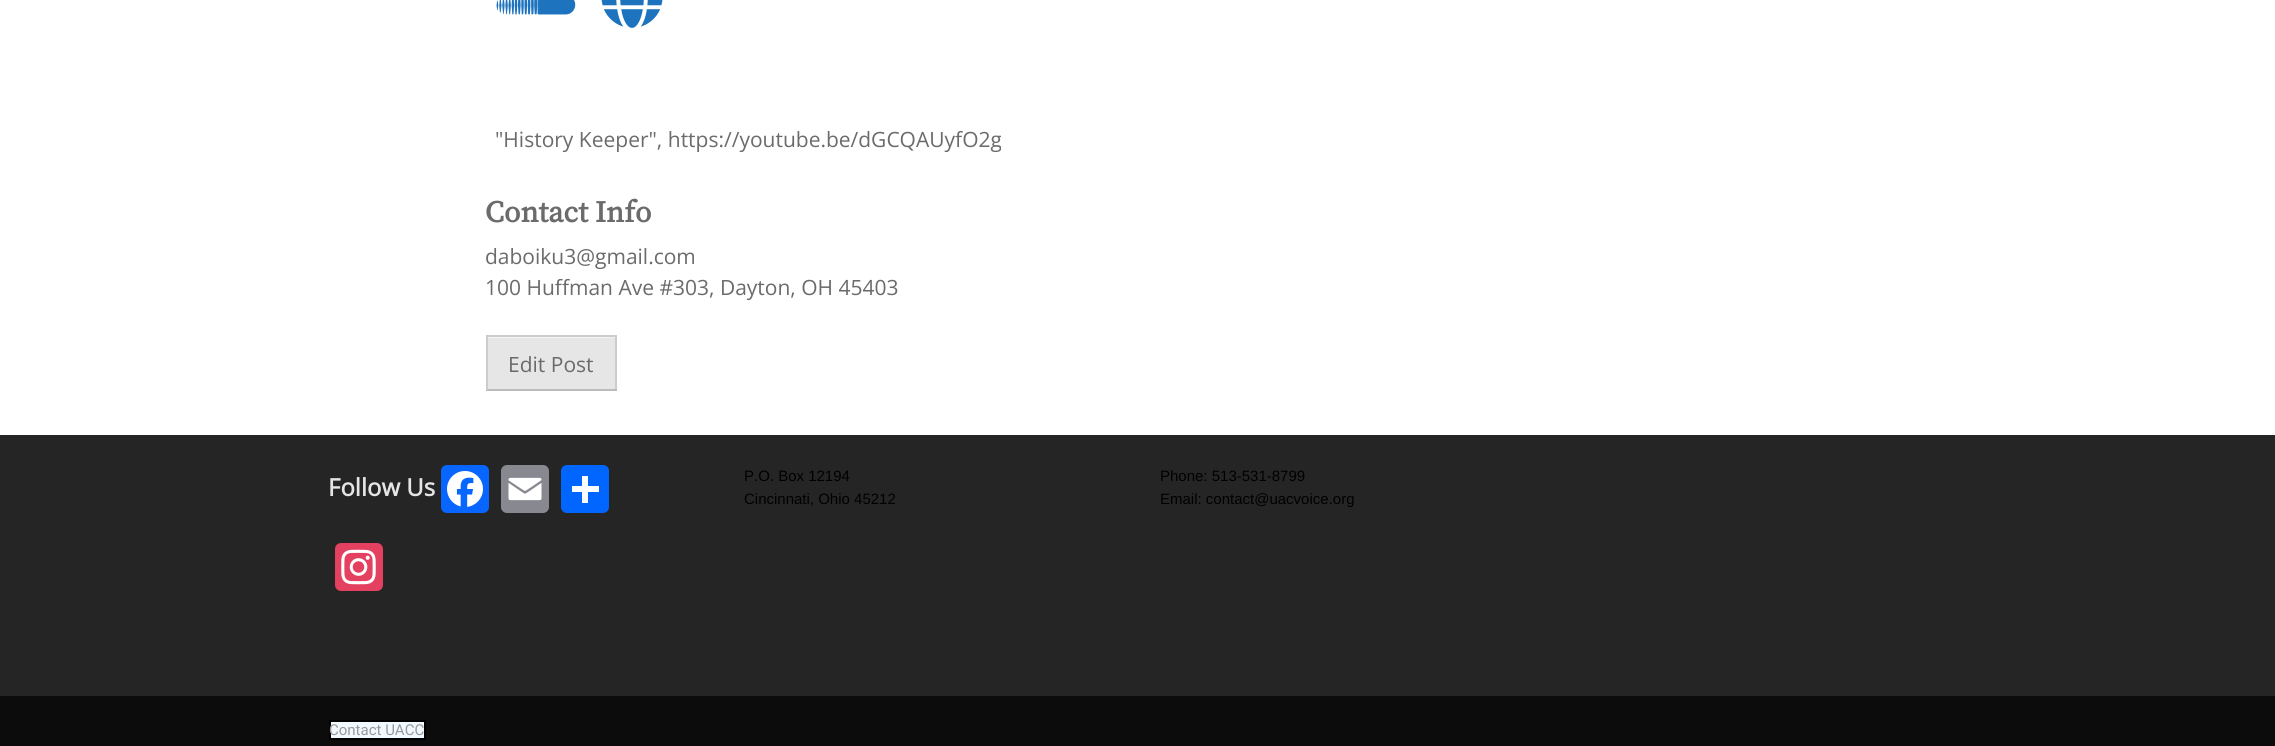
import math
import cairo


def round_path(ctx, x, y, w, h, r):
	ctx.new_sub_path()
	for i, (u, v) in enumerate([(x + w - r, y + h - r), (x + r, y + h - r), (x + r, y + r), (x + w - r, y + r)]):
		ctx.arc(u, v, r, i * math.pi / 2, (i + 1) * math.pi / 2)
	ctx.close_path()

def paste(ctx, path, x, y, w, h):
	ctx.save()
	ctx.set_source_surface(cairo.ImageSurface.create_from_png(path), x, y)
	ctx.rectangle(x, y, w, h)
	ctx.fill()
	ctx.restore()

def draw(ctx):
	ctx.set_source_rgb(1, 1, 1)
	ctx.paint()
	paste(ctx, 'media/1.png', 496, 0, 80, 15)
	paste(ctx, 'media/2.png', 601, 0, 62, 28)
	ctx.select_font_face('Open Sans')
	ctx.set_font_size(21)
	ctx.set_source_rgb(0.42, 0.42, 0.42)
	ctx.move_to(495, 147)
	ctx.show_text('"History Keeper", https://youtube.be/dGCQAUyfO2g')
	ctx.select_font_face('Source Serif Pro', cairo.FONT_SLANT_NORMAL, cairo.FONT_WEIGHT_BOLD)
	ctx.set_font_size(30)
	ctx.move_to(485, 222)
	ctx.show_text('Contact Info')
	ctx.select_font_face('Open Sans')
	ctx.set_font_size(21)
	ctx.move_to(485, 264)
	ctx.show_text('daboiku3@gmail.com')
	ctx.move_to(485, 295)
	ctx.show_text('100 Huffman Ave #303, Dayton, OH 45403')
	ctx.set_source_rgb(0.902, 0.902, 0.902)
	ctx.rectangle(488, 338, 127, 51)
	ctx.fill()
	ctx.set_source_rgb(0.953, 0.953, 0.953)
	ctx.rectangle(488, 337, 127, 1)
	ctx.fill()
	ctx.set_source_rgb(0.8, 0.8, 0.8)
	ctx.rectangle(486, 335, 131, 2)
	ctx.rectangle(615, 335, 2, 55)
	ctx.fill()
	ctx.set_source_rgb(0.733, 0.733, 0.733)
	ctx.rectangle(486, 389, 131, 2)
	ctx.fill()
	ctx.set_source_rgb(0.8, 0.8, 0.8)
	ctx.rectangle(486, 335, 2, 55)
	ctx.fill()
	ctx.set_source_rgb(0.42, 0.42, 0.42)
	ctx.move_to(508, 372)
	ctx.show_text('Edit Post')
	ctx.set_source_rgb(0.145, 0.145, 0.145)
	ctx.rectangle(0, 435, 2275, 261)
	ctx.fill()
	ctx.select_font_face('Open Sans', cairo.FONT_SLANT_NORMAL, cairo.FONT_WEIGHT_BOLD)
	ctx.set_font_size(24)
	ctx.set_source_rgb(0.898, 0.898, 0.898)
	ctx.move_to(328, 496)
	ctx.show_text('Follow Us')
	ctx.set_source_rgb(0.031, 0.4, 1)
	round_path(ctx, 441, 465, 48, 48, 6)
	ctx.fill()
	paste(ctx, 'media/3.png', 447, 471, 36, 36)
	ctx.set_source_rgb(0.533, 0.537, 0.565)
	round_path(ctx, 501, 465, 48, 48, 6)
	ctx.fill()
	paste(ctx, 'media/4.png', 508, 477, 34, 24)
	ctx.set_source_rgb(0.004, 0.4, 1)
	round_path(ctx, 561, 465, 48, 48, 6)
	ctx.fill()
	ctx.set_source_rgb(1, 1, 1)
	ctx.rectangle(582, 476, 6, 27)
	ctx.fill()
	ctx.rectangle(572, 486, 27, 6)
	ctx.fill()
	ctx.set_source_rgb(0.894, 0.251, 0.373)
	round_path(ctx, 335, 543, 48, 48, 6)
	ctx.fill()
	paste(ctx, 'media/5.png', 341, 549, 35, 36)
	ctx.select_font_face('Liberation Sans')
	ctx.set_font_size(15)
	ctx.set_source_rgb(0, 0, 0)
	for x, y, s in [
		(744, 481, 'P.O. Box 12194'),
		(744, 504, 'Cincinnati, Ohio 45212'),
		(1160, 481, 'Phone: 513-531-8799'),
		(1160, 504, 'Email: contact@uacvoice.org'),
	]:
		ctx.move_to(x, y)
		ctx.show_text(s)
	ctx.set_source_rgb(0.047, 0.047, 0.047)
	ctx.rectangle(0, 696, 2275, 50)
	ctx.fill()
	ctx.set_source_rgb(0.941, 0.973, 1)
	ctx.rectangle(330, 721, 95, 18)
	ctx.fill_preserve()
	ctx.set_source_rgb(0, 0, 0)
	ctx.stroke()
	ctx.select_font_face('Roboto')
	ctx.set_source_rgb(0.6, 0.6, 0.6)
	ctx.move_to(329, 735)
	ctx.show_text('Contact UACC')


surface = cairo.ImageSurface(cairo.FORMAT_RGB24, 2275, 746)
ctx = cairo.Context(surface)
options = cairo.FontOptions()
options.set_hint_metrics(cairo.HINT_METRICS_OFF)
options.set_hint_style(cairo.HINT_STYLE_NONE)
ctx.set_font_options(options)
ctx.set_miter_limit(4)
draw(ctx)
surface.write_to_png('image.png')
